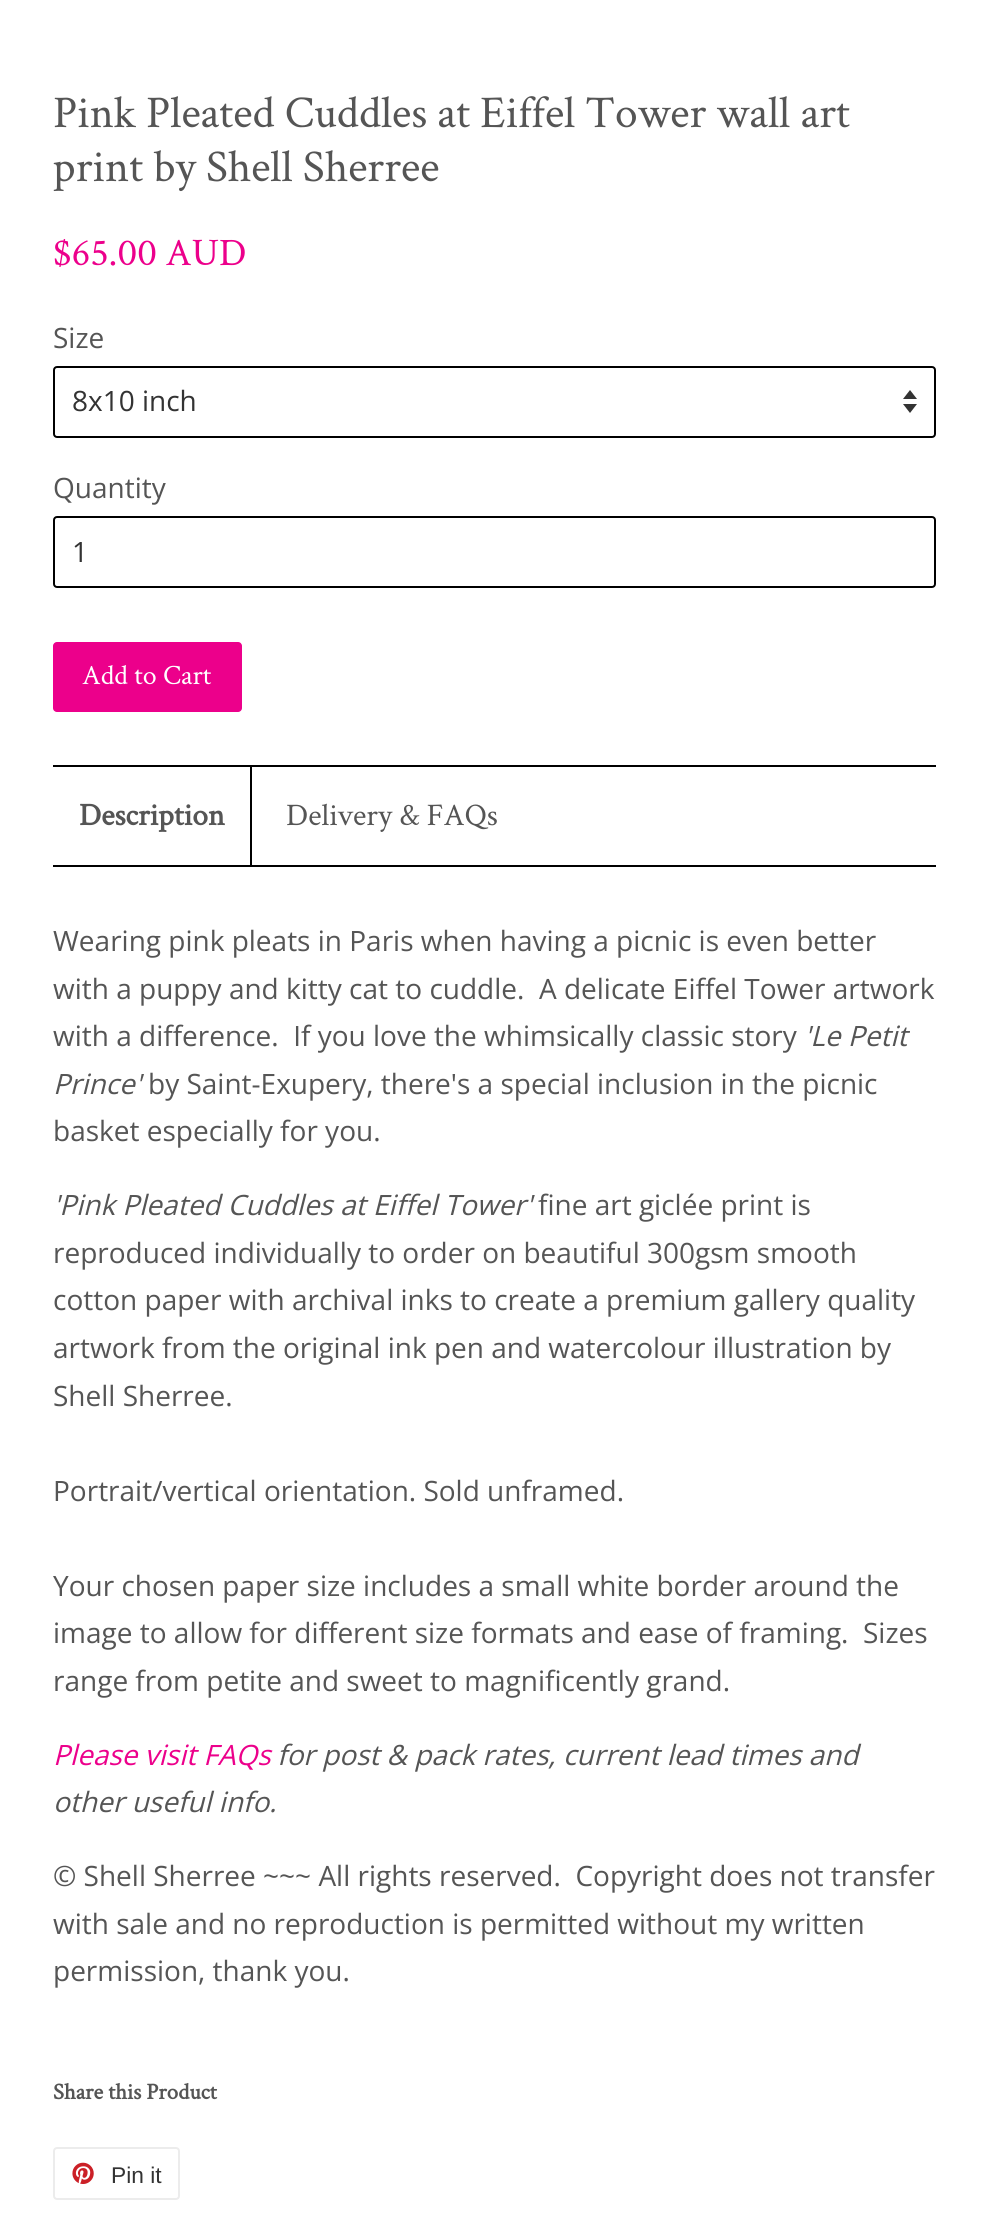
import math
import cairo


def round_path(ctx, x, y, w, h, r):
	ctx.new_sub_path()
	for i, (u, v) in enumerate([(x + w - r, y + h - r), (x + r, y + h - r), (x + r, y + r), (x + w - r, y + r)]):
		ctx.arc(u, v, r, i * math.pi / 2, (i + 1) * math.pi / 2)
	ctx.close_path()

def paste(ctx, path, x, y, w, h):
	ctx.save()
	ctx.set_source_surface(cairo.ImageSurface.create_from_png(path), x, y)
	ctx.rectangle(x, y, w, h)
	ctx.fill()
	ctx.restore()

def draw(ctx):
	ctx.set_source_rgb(1, 1, 1)
	ctx.paint()
	ctx.select_font_face('Crimson Text')
	ctx.set_font_size(45.5)
	ctx.set_source_rgb(0.333, 0.333, 0.333)
	ctx.move_to(53, 127)
	ctx.show_text('Pink Pleated Cuddles at Eiffel Tower wall art')
	ctx.move_to(53, 181)
	ctx.show_text('print by Shell Sherree')
	ctx.set_font_size(39)
	ctx.set_source_rgb(0.922, 0, 0.545)
	ctx.move_to(53, 265)
	ctx.show_text('$65.00 AUD')
	ctx.select_font_face('Open Sans')
	ctx.set_font_size(28)
	ctx.set_source_rgb(0.333, 0.333, 0.333)
	ctx.move_to(53, 348)
	ctx.show_text('Size')
	ctx.set_source_rgb(0.2, 0.2, 0.2)
	ctx.new_path()
	ctx.move_to(903, 404)
	ctx.line_to(910, 413)
	ctx.line_to(917, 404)
	ctx.close_path()
	ctx.move_to(910, 390)
	ctx.line_to(903, 399)
	ctx.line_to(917, 399)
	ctx.close_path()
	ctx.fill()
	round_path(ctx, 54, 367, 881, 70, 3)
	ctx.set_source_rgb(0, 0, 0)
	ctx.stroke()
	ctx.set_source_rgb(0.2, 0.2, 0.2)
	ctx.move_to(72, 411)
	ctx.show_text('8x10 inch')
	ctx.set_source_rgb(0.333, 0.333, 0.333)
	ctx.move_to(53, 498)
	ctx.show_text('Quantity')
	round_path(ctx, 54, 517, 881, 70, 3)
	ctx.set_source_rgb(0, 0, 0)
	ctx.stroke()
	ctx.set_source_rgb(0.2, 0.2, 0.2)
	ctx.move_to(72, 562)
	ctx.show_text('1')
	ctx.set_source_rgb(0.922, 0, 0.545)
	round_path(ctx, 53, 642, 189, 70, 4)
	ctx.fill()
	ctx.select_font_face('Crimson Text')
	ctx.set_source_rgb(1, 1, 1)
	ctx.move_to(82, 684)
	ctx.show_text('Add to Cart')
	ctx.set_source_rgb(0, 0, 0)
	ctx.rectangle(53, 765, 883, 2)
	ctx.rectangle(53, 865, 883, 2)
	ctx.rectangle(250, 767, 2, 98)
	ctx.fill()
	ctx.select_font_face('Crimson Text', cairo.FONT_SLANT_NORMAL, cairo.FONT_WEIGHT_BOLD)
	ctx.set_font_size(31.5)
	ctx.set_source_rgb(0.333, 0.333, 0.333)
	ctx.move_to(79, 825)
	ctx.show_text('Description')
	ctx.select_font_face('Crimson Text')
	ctx.move_to(286, 825)
	ctx.show_text('Delivery & FAQs')
	ctx.select_font_face('Open Sans')
	ctx.set_font_size(28)
	for x, y, s in [
		(53, 951, 'Wearing pink pleats in Paris when having a picnic is even better'),
		(53, 999, 'with a puppy and kitty cat to cuddle.  A delicate Eiffel Tower artwork'),
		(53, 1046, 'with a difference.  If you love the whimsically classic story'),
	]:
		ctx.move_to(x, y)
		ctx.show_text(s)
	ctx.select_font_face('Open Sans', cairo.FONT_SLANT_ITALIC)
	ctx.move_to(804, 1046)
	ctx.show_text('\'Le Petit')
	ctx.move_to(53, 1094)
	ctx.show_text('Prince\'')
	ctx.select_font_face('Open Sans')
	ctx.move_to(148, 1094)
	ctx.show_text('by Saint-Exupery, there\'s a special inclusion in the picnic')
	ctx.move_to(53, 1141)
	ctx.show_text('basket especially for you.')
	ctx.select_font_face('Open Sans', cairo.FONT_SLANT_ITALIC)
	ctx.move_to(53, 1215)
	ctx.show_text('\'Pink Pleated Cuddles at Eiffel Tower\'')
	ctx.select_font_face('Open Sans')
	for x, y, s in [
		(538, 1215, 'fine art giclée print is'),
		(53, 1263, 'reproduced individually to order on beautiful 300gsm smooth'),
		(53, 1310, 'cotton paper with archival inks to create a premium gallery quality'),
		(53, 1358, 'artwork from the original ink pen and watercolour illustration by'),
		(53, 1406, 'Shell Sherree.'),
		(53, 1501, 'Portrait/vertical orientation. Sold unframed.'),
		(53, 1596, 'Your chosen paper size includes a small white border around the'),
		(53, 1643, 'image to allow for different size formats and ease of framing.  Sizes'),
		(53, 1691, 'range from petite and sweet to magnificently grand.'),
	]:
		ctx.move_to(x, y)
		ctx.show_text(s)
	ctx.select_font_face('Open Sans', cairo.FONT_SLANT_ITALIC)
	ctx.set_source_rgb(0.922, 0, 0.545)
	ctx.move_to(53, 1765)
	ctx.show_text('Please visit FAQs')
	ctx.set_source_rgb(0.333, 0.333, 0.333)
	ctx.move_to(277, 1765)
	ctx.show_text('for post & pack rates, current lead times and')
	ctx.move_to(53, 1812)
	ctx.show_text('other useful info.')
	ctx.select_font_face('Open Sans')
	for x, y, s in [
		(53, 1886, '© Shell Sherree ~~~ All rights reserved.  Copyright does not transfer'),
		(53, 1934, 'with sale and no reproduction is permitted without my written'),
		(53, 1981, 'permission, thank you.'),
	]:
		ctx.move_to(x, y)
		ctx.show_text(s)
	ctx.select_font_face('Crimson Text', cairo.FONT_SLANT_NORMAL, cairo.FONT_WEIGHT_BOLD)
	ctx.set_font_size(22.75)
	ctx.move_to(53, 2099)
	ctx.show_text('Share this Product')
	round_path(ctx, 54, 2148, 125, 51, 3)
	ctx.set_source_rgb(0.925, 0.925, 0.925)
	ctx.stroke()
	paste(ctx, 'media/1.png', 72, 2162, 22, 22)
	ctx.select_font_face('Liberation Sans')
	ctx.set_source_rgb(0.2, 0.2, 0.2)
	ctx.move_to(111, 2183)
	ctx.show_text('Pin it')


surface = cairo.ImageSurface(cairo.FORMAT_RGB24, 988, 2217)
ctx = cairo.Context(surface)
options = cairo.FontOptions()
options.set_hint_metrics(cairo.HINT_METRICS_OFF)
options.set_hint_style(cairo.HINT_STYLE_NONE)
ctx.set_font_options(options)
ctx.set_miter_limit(4)
draw(ctx)
surface.write_to_png('image.png')
